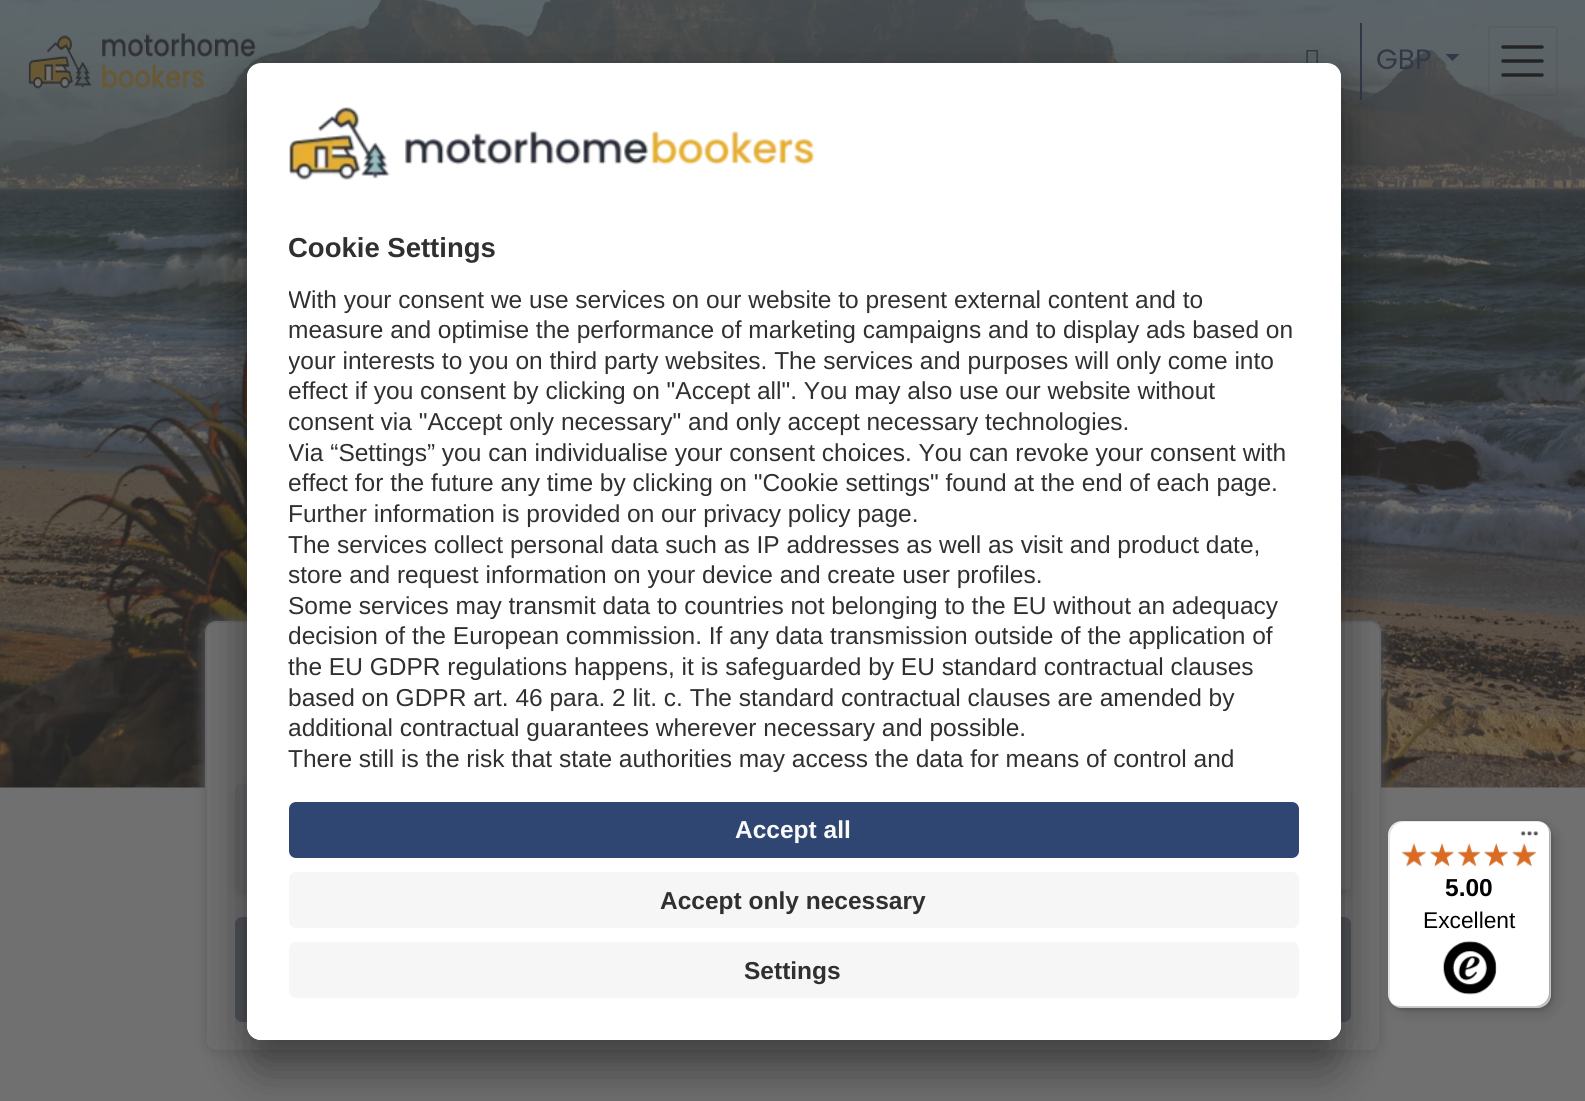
import math
import cairo


def round_path(ctx, x, y, w, h, r):
	ctx.new_sub_path()
	for i, (u, v) in enumerate([(x + w - r, y + h - r), (x + r, y + h - r), (x + r, y + r), (x + w - r, y + r)]):
		ctx.arc(u, v, r, i * math.pi / 2, (i + 1) * math.pi / 2)
	ctx.close_path()

def blur_box(ctx, x, y, w, h, r, blur, alpha):
	ctx.push_group_with_content(cairo.CONTENT_ALPHA)
	ctx.set_operator(cairo.OPERATOR_SOURCE)
	for i in range(15, -16, -2):
		e = blur * i / 6
		if min(w, h) + 2 * e > 0:
			ctx.set_source_rgba(0, 0, 0, alpha * math.erfc((i - 1) / 8.5) / 2)
			round_path(ctx, x - e, y - e, w + 2 * e, h + 2 * e, max(0, min(r + e + blur * .6, min(w, h) / 2 + e)))
			ctx.fill()
	ctx.mask(ctx.pop_group())

def paste(ctx, path, x, y, w, h):
	ctx.save()
	ctx.set_source_surface(cairo.ImageSurface.create_from_png(path), x, y)
	ctx.rectangle(x, y, w, h)
	ctx.fill()
	ctx.restore()

def draw(ctx):
	ctx.set_source_rgb(0.439, 0.439, 0.439)
	ctx.paint()
	paste(ctx, 'media/1.png', 0, 0, 1585, 788)
	paste(ctx, 'media/2.png', 28, 33, 228, 56)
	paste(ctx, 'media/3.png', 1306, 50, 12, 13)
	ctx.set_source_rgb(0.196, 0.224, 0.275)
	ctx.rectangle(1360, 23, 2, 77)
	ctx.fill()
	ctx.select_font_face('Poppins')
	ctx.set_font_size(28)
	ctx.move_to(1376, 69)
	ctx.show_text('GBP')
	ctx.new_path()
	ctx.move_to(1445.5, 54)
	ctx.line_to(1459.5, 54)
	ctx.line_to(1452.5, 61)
	ctx.close_path()
	ctx.fill()
	round_path(ctx, 1489, 27, 68, 68, 1.5)
	ctx.set_source_rgba(0.2, 0.2, 0.2, 0.1)
	ctx.stroke()
	ctx.new_path()
	ctx.move_to(1503, 47)
	ctx.line_to(1542, 47)
	ctx.move_to(1503, 61)
	ctx.line_to(1542, 61)
	ctx.move_to(1503, 75)
	ctx.line_to(1542, 75)
	ctx.set_source_rgb(0.141, 0.141, 0.141)
	ctx.set_line_width(3.5)
	ctx.set_line_cap(cairo.LINE_CAP_ROUND)
	ctx.stroke()
	ctx.set_source_rgb(0.392, 0.392, 0.392)
	blur_box(ctx, 205, 621, 1176, 431, 11, 7, 1)
	ctx.set_source_rgb(0.439, 0.439, 0.439)
	round_path(ctx, 206, 622, 1174, 429, 10)
	ctx.fill_preserve()
	ctx.set_source_rgb(0.408, 0.412, 0.42)
	ctx.set_line_width(2)
	ctx.set_line_cap(cairo.LINE_CAP_BUTT)
	ctx.stroke()
	ctx.set_source_rgb(0.392, 0.392, 0.392)
	blur_box(ctx, 235, 789, 105, 105, 7, 5, 1)
	ctx.set_source_rgb(0.408, 0.412, 0.42)
	ctx.new_path()
	ctx.move_to(242, 784)
	ctx.line_to(340, 784)
	ctx.line_to(340, 889)
	ctx.line_to(242, 889)
	ctx.curve_to(238, 889, 235, 886, 235, 882)
	ctx.line_to(235, 791)
	ctx.curve_to(235, 787, 238, 784, 242, 784)
	ctx.close_path()
	ctx.fill()
	ctx.set_source_rgb(0.392, 0.392, 0.392)
	blur_box(ctx, 919, 789, 432, 105, 7, 5, 1)
	ctx.set_source_rgb(0.439, 0.439, 0.439)
	round_path(ctx, 919, 784, 432, 105, 2.5)
	ctx.fill()
	ctx.set_source_rgb(0.318, 0.329, 0.349)
	round_path(ctx, 236, 918, 1114, 103, 6)
	ctx.fill_preserve()
	ctx.stroke()
	ctx.set_source_rgb(0, 0, 0)
	blur_box(ctx, 247, 98, 1094, 977, 14, 24.5, 0.3)
	blur_box(ctx, 247, 72, 1094, 976, 14, 23, 0.22)
	ctx.set_source_rgb(1, 1, 1)
	round_path(ctx, 247, 63, 1094, 977, 14)
	ctx.fill()
	ctx.save()
	round_path(ctx, 247, 63, 1094, 977, 14)
	ctx.clip()
	ctx.new_path()
	ctx.move_to(261, 63)
	ctx.line_to(1327, 63)
	ctx.curve_to(1334.5, 63, 1341, 69.5, 1341, 77)
	ctx.line_to(1341, 781)
	ctx.line_to(247, 781)
	ctx.line_to(247, 77)
	ctx.curve_to(247, 69.5, 253.5, 63, 261, 63)
	ctx.close_path()
	ctx.clip()
	ctx.rectangle(247, 65, 1094, 716)
	ctx.fill()
	ctx.restore()
	paste(ctx, 'media/4.png', 289, 107, 525, 73)
	ctx.select_font_face('Liberation Sans', cairo.FONT_SLANT_NORMAL, cairo.FONT_WEIGHT_BOLD)
	ctx.set_font_size(27.5)
	ctx.set_source_rgb(0.188, 0.188, 0.188)
	ctx.move_to(288, 257)
	ctx.show_text('Cookie Settings')
	ctx.save()
	ctx.rectangle(289, 278, 1010, 503)
	ctx.clip()
	ctx.select_font_face('Liberation Sans')
	ctx.set_font_size(24.5)
	ctx.move_to(288, 308)
	ctx.show_text('With your consent we use services on our website to present external content and to')
	ctx.restore()
	ctx.select_font_face('Liberation Sans')
	ctx.set_font_size(24.5)
	ctx.move_to(288, 338)
	ctx.show_text('measure and optimise the performance of marketing campaigns and to display ads based on')
	ctx.save()
	ctx.rectangle(289, 278, 1010, 503)
	ctx.clip()
	ctx.move_to(288, 369)
	ctx.show_text('your interests to you on third party websites. The services and purposes will only come into')
	ctx.restore()
	ctx.move_to(288, 399)
	ctx.show_text('effect if you consent by clicking on "Accept all". You may also use our website without')
	ctx.move_to(288, 430)
	ctx.show_text('consent via "Accept only necessary" and only accept necessary technologies.')
	ctx.save()
	ctx.rectangle(289, 278, 1010, 503)
	ctx.clip()
	ctx.move_to(288, 461)
	ctx.show_text('Via “Settings” you can individualise your consent choices. You can revoke your consent with')
	ctx.restore()
	for x, y, s in [
		(288, 491, 'effect for the future any time by clicking on "Cookie settings" found at the end of each page.'),
		(288, 522, 'Further information is provided on our privacy policy page.'),
		(288, 553, 'The services collect personal data such as IP addresses as well as visit and product date,'),
		(288, 583, 'store and request information on your device and create user profiles.'),
		(288, 614, 'Some services may transmit data to countries not belonging to the EU without an adequacy'),
		(288, 644, 'decision of the European commission. If any data transmission outside of the application of'),
		(288, 675, 'the EU GDPR regulations happens, it is safeguarded by EU standard contractual clauses'),
		(288, 706, 'based on GDPR art. 46 para. 2 lit. c. The standard contractual clauses are amended by'),
		(288, 736, 'additional contractual guarantees wherever necessary and possible.'),
		(288, 767, 'There still is the risk that state authorities may access the data for means of control and'),
	]:
		ctx.move_to(x, y)
		ctx.show_text(s)
	ctx.set_source_rgb(1, 1, 1)
	ctx.new_path()
	ctx.move_to(247, 781)
	ctx.line_to(1341, 781)
	ctx.line_to(1341, 1026)
	ctx.curve_to(1341, 1033.5, 1334.5, 1040, 1327, 1040)
	ctx.line_to(261, 1040)
	ctx.curve_to(253.5, 1040, 247, 1033.5, 247, 1026)
	ctx.close_path()
	ctx.fill()
	ctx.set_source_rgb(0.184, 0.275, 0.451)
	round_path(ctx, 289, 802, 1010, 56, 7)
	ctx.fill()
	ctx.select_font_face('Liberation Sans', cairo.FONT_SLANT_NORMAL, cairo.FONT_WEIGHT_BOLD)
	ctx.set_source_rgb(0.98, 0.98, 0.98)
	ctx.move_to(735, 838)
	ctx.show_text('Accept all')
	ctx.set_source_rgb(0.961, 0.961, 0.961)
	round_path(ctx, 289, 872, 1010, 56, 7)
	ctx.fill()
	ctx.set_source_rgb(0.188, 0.188, 0.188)
	ctx.move_to(660, 909)
	ctx.show_text('Accept only necessary')
	ctx.set_source_rgb(0.961, 0.961, 0.961)
	round_path(ctx, 289, 942, 1010, 56, 7)
	ctx.fill()
	ctx.set_source_rgb(0.188, 0.188, 0.188)
	ctx.move_to(744, 979)
	ctx.show_text('Settings')
	ctx.set_source_rgb(0, 0, 0)
	blur_box(ctx, 1393, 826, 163, 187, 14, 7, 0.15)
	blur_box(ctx, 1390, 823, 162, 187, 14, 2, 0.15)
	ctx.set_source_rgb(1, 1, 1)
	round_path(ctx, 1388, 821, 163, 187, 14)
	ctx.fill()
	ctx.set_source_rgba(0, 0, 0, 0.1)
	ctx.new_path()
	ctx.move_to(1404, 822)
	ctx.line_to(1538, 822)
	ctx.curve_to(1542, 822, 1546, 824, 1548, 827)
	ctx.curve_to(1546, 823, 1542, 821, 1537, 821)
	ctx.line_to(1402, 821)
	ctx.curve_to(1394, 821, 1388, 827, 1388, 835)
	ctx.line_to(1388, 994)
	ctx.curve_to(1388, 999, 1390, 1003, 1394, 1005)
	ctx.curve_to(1391, 1003, 1390, 999, 1390, 996)
	ctx.line_to(1390, 836)
	ctx.curve_to(1390, 829, 1396, 822, 1404, 822)
	ctx.close_path()
	ctx.fill()
	ctx.set_source_rgba(0, 0, 0, 0.2)
	ctx.new_path()
	ctx.move_to(1392, 1003)
	ctx.curve_to(1394, 1006, 1398, 1008, 1402, 1008)
	ctx.line_to(1537, 1008)
	ctx.curve_to(1545, 1008, 1551, 1002, 1551, 994)
	ctx.line_to(1551, 835)
	ctx.curve_to(1551, 830, 1549, 826, 1545, 824)
	ctx.curve_to(1548, 826, 1549, 829, 1549, 833)
	ctx.line_to(1549, 992)
	ctx.curve_to(1549, 1000, 1542, 1006, 1535, 1006)
	ctx.line_to(1400, 1006)
	ctx.curve_to(1397, 1006, 1394, 1005, 1392, 1003)
	ctx.close_path()
	ctx.fill()
	ctx.set_source_rgba(0.196, 0.196, 0.196, 0.2)
	ctx.new_path()
	ctx.move_to(1393, 1004)
	ctx.curve_to(1395, 1007, 1398, 1008, 1402, 1008)
	ctx.line_to(1537, 1008)
	ctx.curve_to(1545, 1008, 1551, 1002, 1551, 994)
	ctx.line_to(1551, 835)
	ctx.curve_to(1551, 829, 1548, 825, 1543, 822)
	ctx.curve_to(1547, 825, 1549, 829, 1549, 834)
	ctx.line_to(1549, 993)
	ctx.curve_to(1549, 1001, 1543, 1007, 1535, 1007)
	ctx.line_to(1401, 1007)
	ctx.curve_to(1398, 1007, 1395, 1006, 1393, 1004)
	ctx.close_path()
	ctx.fill()
	ctx.set_source_rgba(1, 1, 1, 0.3)
	ctx.new_path()
	ctx.move_to(1393, 1004)
	ctx.curve_to(1395, 1007, 1398, 1008, 1402, 1008)
	ctx.line_to(1537, 1008)
	ctx.curve_to(1545, 1008, 1551, 1002, 1551, 994)
	ctx.line_to(1551, 835)
	ctx.curve_to(1551, 830, 1549, 826, 1545, 824)
	ctx.curve_to(1548, 826, 1550, 830, 1550, 834)
	ctx.line_to(1550, 993)
	ctx.curve_to(1550, 1001, 1543, 1007, 1536, 1007)
	ctx.line_to(1401, 1007)
	ctx.curve_to(1398, 1007, 1395, 1006, 1393, 1004)
	ctx.close_path()
	ctx.fill()
	paste(ctx, 'media/5.png', 1520, 831, 18, 5)
	paste(ctx, 'media/11.png', 1402, 844, 24, 23)
	paste(ctx, 'media/6.png', 1401, 843, 25, 24)
	paste(ctx, 'media/12.png', 1430, 843, 24, 23)
	paste(ctx, 'media/7.png', 1430, 843, 24, 24)
	paste(ctx, 'media/13.png', 1458, 844, 23, 23)
	paste(ctx, 'media/8.png', 1457, 843, 24, 24)
	paste(ctx, 'media/14.png', 1484, 843, 24, 23)
	paste(ctx, 'media/9.png', 1484, 843, 24, 24)
	paste(ctx, 'media/15.png', 1512, 844, 24, 23)
	paste(ctx, 'media/10.png', 1512, 843, 25, 24)
	ctx.set_source_rgb(0, 0, 0)
	ctx.move_to(1445, 896)
	ctx.show_text('5.00')
	ctx.select_font_face('Liberation Sans')
	ctx.set_font_size(22.75)
	ctx.move_to(1423, 928)
	ctx.show_text('Excellent')
	paste(ctx, 'media/16.png', 1443, 941, 54, 54)


surface = cairo.ImageSurface(cairo.FORMAT_RGB24, 1585, 1101)
ctx = cairo.Context(surface)
options = cairo.FontOptions()
options.set_hint_metrics(cairo.HINT_METRICS_OFF)
options.set_hint_style(cairo.HINT_STYLE_NONE)
ctx.set_font_options(options)
ctx.set_miter_limit(4)
draw(ctx)
surface.write_to_png('image.png')
